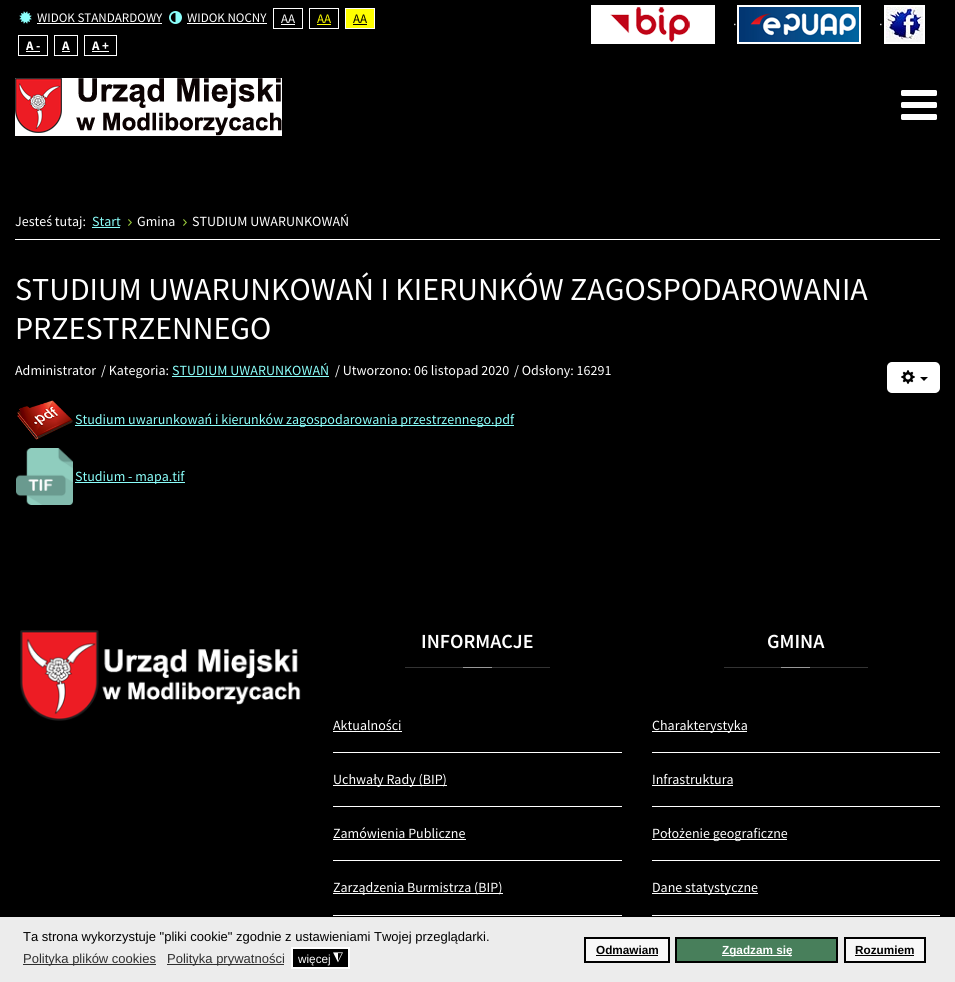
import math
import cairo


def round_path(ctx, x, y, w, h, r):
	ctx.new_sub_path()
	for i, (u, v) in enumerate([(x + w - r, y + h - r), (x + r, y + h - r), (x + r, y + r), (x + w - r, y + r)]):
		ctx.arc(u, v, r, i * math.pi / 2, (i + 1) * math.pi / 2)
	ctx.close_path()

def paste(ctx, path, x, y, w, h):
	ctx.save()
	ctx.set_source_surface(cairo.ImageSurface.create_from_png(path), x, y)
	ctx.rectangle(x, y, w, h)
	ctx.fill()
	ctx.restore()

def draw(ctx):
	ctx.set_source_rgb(0, 0, 0)
	ctx.paint()
	ctx.set_source_rgb(0.2, 0.2, 0.2)
	ctx.rectangle(724, 667, 144, 1)
	ctx.fill()
	ctx.rectangle(405, 667, 145, 1)
	ctx.fill()
	paste(ctx, 'media/1.png', 19, 11, 13, 13)
	ctx.select_font_face('Source Sans Pro')
	ctx.set_font_size(13)
	ctx.set_source_rgb(1, 1, 1)
	ctx.move_to(37, 22)
	ctx.show_text('WIDOK STANDARDOWY')
	ctx.rectangle(37, 23, 125, 1)
	ctx.fill()
	paste(ctx, 'media/2.png', 169, 11, 13, 13)
	ctx.move_to(187, 22)
	ctx.show_text('WIDOK NOCNY')
	ctx.rectangle(187, 23, 80, 1)
	ctx.fill()
	ctx.rectangle(273.5, 8.5, 29, 20)
	ctx.set_line_width(1)
	ctx.stroke()
	ctx.move_to(281, 23)
	ctx.show_text('AA')
	ctx.rectangle(281, 24, 14, 1)
	ctx.fill()
	ctx.rectangle(309.5, 8.5, 29, 20)
	ctx.stroke()
	ctx.set_source_rgb(1, 1, 0)
	ctx.move_to(317, 23)
	ctx.show_text('AA')
	ctx.rectangle(317, 24, 14, 1)
	ctx.fill()
	ctx.rectangle(345.5, 8.5, 29, 20)
	ctx.fill_preserve()
	ctx.set_source_rgb(1, 1, 1)
	ctx.stroke()
	ctx.set_source_rgb(0, 0, 0)
	ctx.move_to(353, 23)
	ctx.show_text('AA')
	ctx.rectangle(353, 24, 14, 1)
	ctx.fill()
	ctx.rectangle(18.5, 35.5, 29, 20)
	ctx.set_source_rgb(1, 1, 1)
	ctx.stroke()
	ctx.select_font_face('Source Sans Pro', cairo.FONT_SLANT_NORMAL, cairo.FONT_WEIGHT_BOLD)
	ctx.move_to(26, 50)
	ctx.show_text('A -')
	ctx.rectangle(26, 51, 14, 1)
	ctx.fill()
	ctx.rectangle(54.5, 35.5, 23, 20)
	ctx.stroke()
	ctx.move_to(62, 50)
	ctx.show_text('A')
	ctx.rectangle(62, 51, 8, 1)
	ctx.fill()
	ctx.rectangle(84.5, 35.5, 32, 20)
	ctx.stroke()
	ctx.move_to(92, 50)
	ctx.show_text('A +')
	ctx.rectangle(92, 51, 17, 1)
	ctx.fill()
	ctx.rectangle(591, 5, 124, 39)
	ctx.fill()
	paste(ctx, 'media/3.png', 610, 7, 80, 35)
	ctx.select_font_face('Liberation Sans')
	ctx.move_to(733, 28)
	ctx.show_text('∙')
	ctx.rectangle(737, 5, 124, 39)
	ctx.fill()
	paste(ctx, 'media/4.png', 739, 7, 120, 35)
	ctx.move_to(879, 28)
	ctx.show_text('∙')
	ctx.rectangle(884, 5, 41, 39)
	ctx.fill()
	paste(ctx, 'media/5.png', 886, 7, 37, 35)
	ctx.rectangle(15, 78, 267, 58)
	ctx.fill()
	paste(ctx, 'media/6.png', 15, 78, 267, 58)
	paste(ctx, 'media/7.png', 901, 90, 36, 30)
	ctx.rectangle(15, 239, 925, 1)
	ctx.fill()
	ctx.select_font_face('Source Sans Pro')
	ctx.set_font_size(14)
	ctx.move_to(15, 226)
	ctx.show_text('Jesteś tutaj:')
	ctx.set_source_rgb(0.545, 1, 0.984)
	ctx.move_to(92, 226)
	ctx.show_text('Start')
	ctx.rectangle(92, 227, 28, 1)
	ctx.fill()
	paste(ctx, 'media/8.png', 128, 219, 4, 7)
	ctx.set_source_rgb(1, 1, 1)
	ctx.move_to(137, 226)
	ctx.show_text('Gmina')
	paste(ctx, 'media/8.png', 183, 219, 4, 7)
	ctx.move_to(192, 226)
	ctx.show_text('STUDIUM UWARUNKOWAŃ')
	ctx.set_font_size(32)
	ctx.move_to(15, 300)
	ctx.show_text('STUDIUM UWARUNKOWAŃ I KIERUNKÓW ZAGOSPODAROWANIA')
	ctx.move_to(15, 339)
	ctx.show_text('PRZESTRZENNEGO')
	ctx.set_font_size(14)
	ctx.move_to(15, 375)
	ctx.show_text('Administrator')
	ctx.move_to(101, 375)
	ctx.show_text('/ Kategoria:')
	ctx.set_source_rgb(0.545, 1, 0.984)
	ctx.move_to(172, 375)
	ctx.show_text('STUDIUM UWARUNKOWAŃ')
	ctx.rectangle(172, 376, 157, 1)
	ctx.fill()
	ctx.set_source_rgb(1, 1, 1)
	ctx.move_to(335, 375)
	ctx.show_text('/ Utworzono: 06 listopad 2020')
	ctx.move_to(514, 375)
	ctx.show_text('/ Odsłony: 16291')
	round_path(ctx, 888, 363, 51, 29, 4)
	ctx.fill_preserve()
	ctx.set_line_width(2)
	ctx.stroke()
	paste(ctx, 'media/9.png', 901, 370, 14, 14)
	ctx.set_source_rgb(0, 0, 0)
	ctx.new_path()
	ctx.move_to(920, 377)
	ctx.line_to(928, 377)
	ctx.line_to(924, 381)
	ctx.close_path()
	ctx.fill()
	paste(ctx, 'media/10.png', 17, 400, 56, 40)
	ctx.set_source_rgb(0.545, 1, 0.984)
	ctx.rectangle(75, 425, 439, 1)
	ctx.fill()
	ctx.move_to(75, 424)
	ctx.show_text('Studium uwarunkowań i kierunków zagospodarowania przestrzennego.pdf')
	paste(ctx, 'media/11.png', 16, 448, 57, 57)
	ctx.rectangle(75, 482, 110, 1)
	ctx.fill()
	ctx.move_to(75, 481)
	ctx.show_text('Studium - mapa.tif')
	paste(ctx, 'media/12.png', 20, 630, 281, 91)
	ctx.select_font_face('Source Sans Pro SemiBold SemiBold')
	ctx.set_font_size(20)
	ctx.set_source_rgb(1, 1, 1)
	ctx.move_to(421, 648)
	ctx.show_text('INFORMACJE')
	ctx.set_source_rgb(0.6, 0.6, 0.6)
	ctx.rectangle(463, 667, 29, 1)
	ctx.fill()
	ctx.select_font_face('Source Sans Pro')
	ctx.set_font_size(14)
	ctx.set_source_rgb(1, 1, 1)
	ctx.move_to(333, 730)
	ctx.show_text('Aktualności')
	ctx.rectangle(333, 731, 69, 1)
	ctx.rectangle(333, 752, 289, 1)
	ctx.rectangle(333, 785, 114, 1)
	ctx.fill()
	ctx.move_to(333, 784)
	ctx.show_text('Uchwały Rady (BIP)')
	ctx.rectangle(333, 806, 289, 1)
	ctx.fill()
	ctx.move_to(333, 838)
	ctx.show_text('Zamówienia Publiczne')
	ctx.rectangle(333, 839, 133, 1)
	ctx.rectangle(333, 860, 289, 1)
	ctx.rectangle(333, 893, 170, 1)
	ctx.fill()
	ctx.move_to(333, 892)
	ctx.show_text('Zarządzenia Burmistrza (BIP)')
	ctx.rectangle(333, 915, 289, 1)
	ctx.fill()
	ctx.select_font_face('Source Sans Pro SemiBold SemiBold')
	ctx.set_font_size(20)
	ctx.move_to(767, 648)
	ctx.show_text('GMINA')
	ctx.set_source_rgb(0.6, 0.6, 0.6)
	ctx.rectangle(781, 667, 29, 1)
	ctx.fill()
	ctx.set_source_rgb(1, 1, 1)
	ctx.rectangle(652, 731, 95, 1)
	ctx.fill()
	ctx.select_font_face('Source Sans Pro')
	ctx.set_font_size(14)
	ctx.move_to(652, 730)
	ctx.show_text('Charakterystyka')
	ctx.rectangle(652, 752, 288, 1)
	ctx.fill()
	ctx.move_to(652, 784)
	ctx.show_text('Infrastruktura')
	ctx.rectangle(652, 785, 81, 1)
	ctx.rectangle(652, 806, 288, 1)
	ctx.rectangle(652, 839, 135, 1)
	ctx.fill()
	ctx.move_to(652, 838)
	ctx.show_text('Położenie geograficzne')
	ctx.rectangle(652, 860, 288, 1)
	ctx.fill()
	ctx.rectangle(652, 893, 106, 1)
	ctx.fill()
	ctx.move_to(652, 892)
	ctx.show_text('Dane statystyczne')
	ctx.rectangle(652, 915, 288, 1)
	ctx.fill()
	ctx.set_source_rgb(0.922, 0.922, 0.922)
	ctx.rectangle(0, 917, 955, 65)
	ctx.fill()
	ctx.select_font_face('Liberation Sans')
	ctx.set_font_size(13)
	ctx.set_source_rgb(0, 0, 0)
	ctx.move_to(23, 941)
	ctx.show_text('Ta strona wykorzystuje "pliki cookie" zgodnie z ustawieniami Twojej przeglądarki.')
	ctx.set_source_rgb(0.184, 0.184, 0.184)
	ctx.rectangle(23, 964, 133, 1)
	ctx.fill()
	ctx.move_to(23, 963)
	ctx.show_text('Polityka plików cookies')
	ctx.rectangle(167, 964, 117, 1)
	ctx.fill()
	ctx.move_to(167, 963)
	ctx.show_text('Polityka prywatności')
	ctx.set_source_rgb(0, 0, 0)
	ctx.rectangle(292, 948, 57, 20)
	ctx.fill_preserve()
	ctx.set_source_rgb(1, 1, 1)
	ctx.stroke()
	ctx.set_font_size(11.75)
	ctx.move_to(298, 963)
	ctx.show_text('więcej')
	ctx.select_font_face('DejaVu Sans')
	ctx.set_font_size(13)
	ctx.save()
	ctx.translate(343, 954)
	ctx.rotate(180 * math.pi / 180)
	ctx.move_to(0, 0)
	ctx.show_text('◮')
	ctx.restore()
	ctx.set_source_rgb(0.969, 0.969, 0.969)
	ctx.rectangle(585, 938, 84, 24)
	ctx.fill_preserve()
	ctx.set_source_rgb(0, 0, 0)
	ctx.stroke()
	ctx.select_font_face('Liberation Sans', cairo.FONT_SLANT_NORMAL, cairo.FONT_WEIGHT_BOLD)
	ctx.set_font_size(11.75)
	ctx.move_to(596, 954)
	ctx.show_text('Odmawiam')
	ctx.rectangle(596, 955, 62, 1)
	ctx.fill()
	ctx.set_source_rgb(0.282, 0.498, 0.357)
	ctx.rectangle(676, 938, 161, 24)
	ctx.fill_preserve()
	ctx.set_source_rgb(0, 0, 0)
	ctx.stroke()
	ctx.set_source_rgb(1, 1, 1)
	ctx.rectangle(722, 955, 70, 1)
	ctx.fill()
	ctx.move_to(722, 954)
	ctx.show_text('Zgadzam się')
	ctx.set_source_rgb(0.969, 0.969, 0.969)
	ctx.rectangle(845, 938, 80, 24)
	ctx.fill_preserve()
	ctx.set_source_rgb(0, 0, 0)
	ctx.stroke()
	ctx.move_to(855, 954)
	ctx.show_text('Rozumiem')
	ctx.rectangle(855, 955, 59, 1)
	ctx.fill()


surface = cairo.ImageSurface(cairo.FORMAT_RGB24, 955, 982)
ctx = cairo.Context(surface)
options = cairo.FontOptions()
options.set_hint_metrics(cairo.HINT_METRICS_OFF)
options.set_hint_style(cairo.HINT_STYLE_NONE)
ctx.set_font_options(options)
ctx.set_miter_limit(4)
draw(ctx)
surface.write_to_png('image.png')
